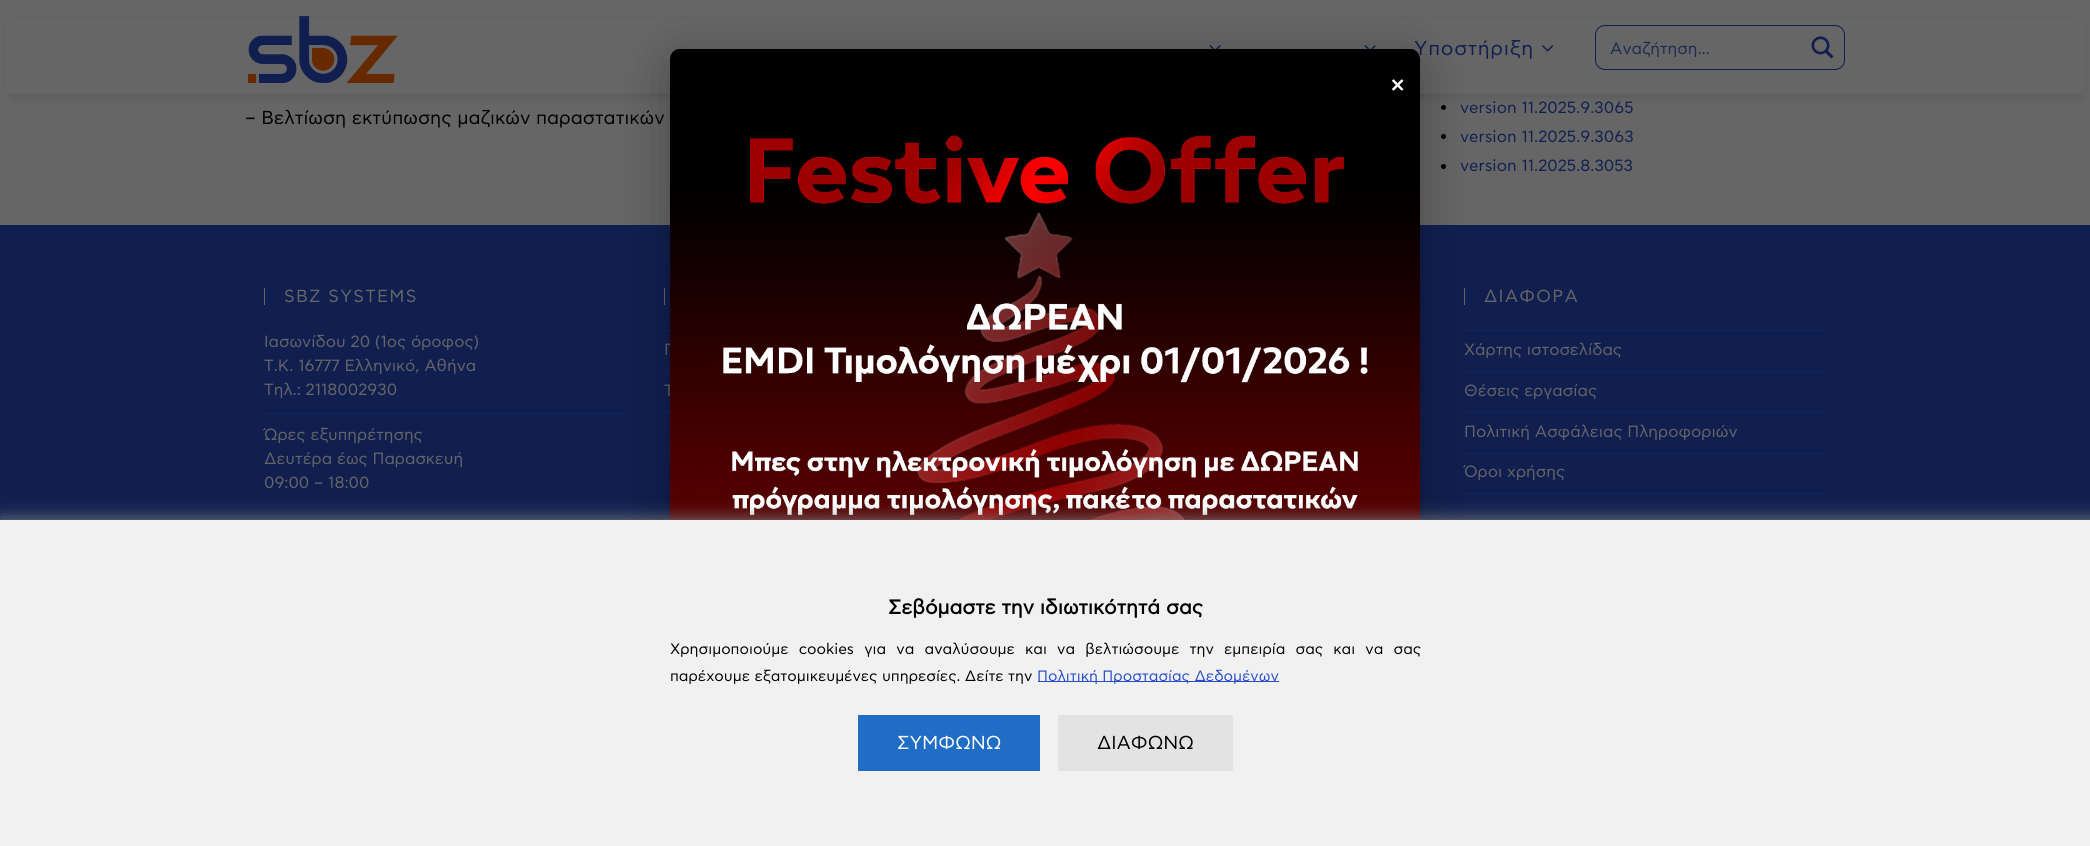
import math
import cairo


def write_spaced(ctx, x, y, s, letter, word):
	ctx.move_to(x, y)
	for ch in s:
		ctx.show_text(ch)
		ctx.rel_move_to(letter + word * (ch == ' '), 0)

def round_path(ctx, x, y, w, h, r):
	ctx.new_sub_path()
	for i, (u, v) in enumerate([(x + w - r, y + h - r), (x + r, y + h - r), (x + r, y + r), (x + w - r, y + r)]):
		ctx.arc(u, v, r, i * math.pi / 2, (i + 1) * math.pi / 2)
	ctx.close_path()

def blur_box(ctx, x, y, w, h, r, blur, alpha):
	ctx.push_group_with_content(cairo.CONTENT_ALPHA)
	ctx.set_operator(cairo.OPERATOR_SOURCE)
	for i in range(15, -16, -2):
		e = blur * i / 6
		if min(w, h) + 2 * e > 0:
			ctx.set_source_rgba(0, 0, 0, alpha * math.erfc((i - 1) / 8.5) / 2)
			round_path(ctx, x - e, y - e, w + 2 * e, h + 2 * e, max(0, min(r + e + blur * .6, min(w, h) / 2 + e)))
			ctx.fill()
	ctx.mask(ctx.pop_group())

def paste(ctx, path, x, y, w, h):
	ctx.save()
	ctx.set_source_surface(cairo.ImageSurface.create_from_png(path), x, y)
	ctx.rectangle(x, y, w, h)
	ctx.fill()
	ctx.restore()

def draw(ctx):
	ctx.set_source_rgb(0.4, 0.4, 0.4)
	ctx.paint()
	ctx.set_source_rgb(0, 0, 0)
	ctx.arc(1443.5, 107.5, 2.5, 0, 2 * math.pi)
	ctx.fill()
	ctx.set_source_rgb(0, 0, 0)
	blur_box(ctx, 13, 25, 2065, 69, 0, 6, 0.2)
	ctx.set_source_rgb(0.4, 0.4, 0.4)
	ctx.rectangle(6, 18, 2079, 76)
	ctx.fill()
	paste(ctx, 'media/1.png', 248, 16, 150, 67)
	paste(ctx, 'media/2.png', 1209, 45, 12, 4)
	paste(ctx, 'media/2.png', 1364, 45, 12, 4)
	ctx.select_font_face('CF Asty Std')
	ctx.set_font_size(20)
	ctx.set_source_rgb(0.063, 0.122, 0.314)
	write_spaced(ctx, 1414, 55, 'Υποστήριξη', 0.75, 0)
	paste(ctx, 'media/3.png', 1542, 45, 12, 7)
	round_path(ctx, 1595.5, 25.5, 249, 44, 9.5)
	ctx.set_line_width(1)
	ctx.stroke()
	ctx.set_font_size(16.25)
	ctx.set_source_rgb(0.11, 0.165, 0.325)
	ctx.move_to(1610, 54)
	ctx.show_text('Αναζήτηση...')
	paste(ctx, 'media/4.png', 1811, 36, 23, 23)
	ctx.set_font_size(18.75)
	ctx.set_source_rgb(0, 0, 0)
	ctx.move_to(245, 124)
	ctx.show_text('– Βελτίωση εκτύπωσης μαζικών παραστατικών')
	ctx.set_font_size(16.25)
	ctx.set_source_rgb(0.063, 0.122, 0.314)
	ctx.move_to(1460, 113)
	ctx.show_text('version 11.2025.9.3065')
	ctx.set_source_rgb(0, 0, 0)
	ctx.new_path()
	ctx.arc(1443.5, 136.5, 2.5, 0, 2 * math.pi)
	ctx.fill()
	ctx.set_source_rgb(0.063, 0.122, 0.314)
	ctx.move_to(1460, 142)
	ctx.show_text('version 11.2025.9.3063')
	ctx.set_source_rgb(0, 0, 0)
	ctx.new_path()
	ctx.arc(1443.5, 166.5, 2.5, 0, 2 * math.pi)
	ctx.fill()
	ctx.set_source_rgb(0.063, 0.122, 0.314)
	ctx.move_to(1460, 171)
	ctx.show_text('version 11.2025.8.3053')
	ctx.rectangle(0, 225, 2090, 295)
	ctx.fill()
	ctx.set_source_rgb(0.4, 0.4, 0.4)
	ctx.rectangle(264, 288, 1, 17)
	ctx.fill()
	ctx.set_font_size(17.5)
	write_spaced(ctx, 284, 302, 'SBZ SYSTEMS', 1.25, 0)
	ctx.set_font_size(16.25)
	for x, y, s in [
		(264, 347, 'Ιασωνίδου 20 (1ος όροφος)'),
		(264, 371, 'Τ.Κ. 16777 Ελληνικό, Αθήνα'),
		(264, 395, 'Τηλ.: 2118002930'),
	]:
		ctx.move_to(x, y)
		ctx.show_text(s)
	ctx.set_source_rgb(0.063, 0.161, 0.345)
	ctx.rectangle(264, 413, 362, 1)
	ctx.fill()
	ctx.set_source_rgb(0.4, 0.4, 0.4)
	for x, y, s in [
		(264, 440, 'Ώρες εξυπηρέτησης'),
		(264, 464, 'Δευτέρα έως Παρασκευή'),
		(264, 488, '09:00 – 18:00'),
	]:
		ctx.move_to(x, y)
		ctx.show_text(s)
	ctx.rectangle(664, 288, 1, 17)
	ctx.fill()
	ctx.set_source_rgb(0.063, 0.161, 0.345)
	ctx.rectangle(664, 330, 6, 1)
	ctx.rectangle(664, 371, 6, 1)
	ctx.fill()
	ctx.set_source_rgb(0.4, 0.4, 0.4)
	ctx.move_to(664, 355)
	ctx.show_text('Γ')
	ctx.set_source_rgb(0.063, 0.161, 0.345)
	ctx.rectangle(664, 411, 6, 1)
	ctx.fill()
	ctx.set_source_rgb(0.4, 0.4, 0.4)
	ctx.move_to(664, 396)
	ctx.show_text('Τ')
	ctx.set_source_rgb(0.063, 0.161, 0.345)
	ctx.rectangle(664, 453, 6, 1)
	ctx.rectangle(664, 493, 6, 1)
	ctx.rectangle(1420, 330, 6, 1)
	ctx.rectangle(1420, 371, 6, 1)
	ctx.rectangle(1420, 411, 6, 1)
	ctx.rectangle(1420, 453, 6, 1)
	ctx.rectangle(1420, 493, 6, 1)
	ctx.fill()
	ctx.set_source_rgb(0.4, 0.4, 0.4)
	ctx.rectangle(1464, 288, 1, 17)
	ctx.fill()
	ctx.set_font_size(17.5)
	write_spaced(ctx, 1484, 302, 'ΔΙΑΦΟΡΑ', 1.25, 0)
	ctx.set_source_rgb(0.063, 0.161, 0.345)
	ctx.rectangle(1464, 330, 362, 1)
	ctx.fill()
	ctx.rectangle(1464, 371, 362, 1)
	ctx.fill()
	ctx.set_font_size(16.25)
	ctx.set_source_rgb(0.4, 0.4, 0.4)
	ctx.move_to(1464, 355)
	ctx.show_text('Χάρτης ιστοσελίδας')
	ctx.set_source_rgb(0.063, 0.161, 0.345)
	ctx.rectangle(1464, 411, 362, 1)
	ctx.fill()
	ctx.set_source_rgb(0.4, 0.4, 0.4)
	ctx.move_to(1464, 396)
	ctx.show_text('Θέσεις εργασίας')
	ctx.set_source_rgb(0.063, 0.161, 0.345)
	ctx.rectangle(1464, 453, 362, 1)
	ctx.fill()
	ctx.set_source_rgb(0.4, 0.4, 0.4)
	ctx.move_to(1464, 437)
	ctx.show_text('Πολιτική Ασφάλειας Πληροφοριών')
	ctx.set_source_rgb(0.063, 0.161, 0.345)
	ctx.rectangle(1464, 493, 362, 1)
	ctx.fill()
	ctx.set_source_rgb(0.4, 0.4, 0.4)
	ctx.move_to(1464, 477)
	ctx.show_text('Όροι χρήσης')
	ctx.set_source_rgb(0, 0, 0)
	blur_box(ctx, 670, 61, 750, 750, 10, 25, 0.3)
	paste(ctx, 'media/5.png', 670, 49, 750, 471)
	ctx.set_font_size(30)
	ctx.set_source_rgb(1, 1, 1)
	ctx.move_to(1388, 94)
	ctx.show_text('×')
	ctx.set_source_rgb(0.498, 0.498, 0.498)
	blur_box(ctx, 0, 520, 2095, 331, 0, 9, 1)
	ctx.set_source_rgb(0.945, 0.945, 0.945)
	ctx.rectangle(0, 520, 2090, 326)
	ctx.fill()
	ctx.select_font_face('CF Asty Std', cairo.FONT_SLANT_NORMAL, cairo.FONT_WEIGHT_BOLD)
	ctx.set_font_size(20)
	ctx.set_source_rgb(0, 0, 0)
	ctx.move_to(888, 614)
	ctx.show_text('Σεβόμαστε την ιδιωτικότητά σας')
	ctx.select_font_face('CF Asty Std')
	ctx.set_font_size(15)
	write_spaced(ctx, 670, 654, 'Χρησιμοποιούμε cookies για να αναλύσουμε και να βελτιώσουμε την εμπειρία σας και να σας', 0, 5.75)
	ctx.move_to(670, 681)
	ctx.show_text('παρέχουμε εξατομικευμένες υπηρεσίες. Δείτε την')
	ctx.set_source_rgb(0.153, 0.302, 0.784)
	ctx.rectangle(1038, 681, 241, 1)
	ctx.fill()
	ctx.move_to(1037, 681)
	ctx.show_text('Πολιτική Προστασίας Δεδομένων')
	ctx.set_source_rgb(0.125, 0.427, 0.773)
	ctx.rectangle(858, 715, 182, 56)
	ctx.fill()
	ctx.set_font_size(18.75)
	ctx.set_source_rgb(1, 1, 1)
	ctx.move_to(897, 749)
	ctx.show_text('ΣΥΜΦΩΝΩ')
	ctx.set_source_rgb(0.89, 0.89, 0.89)
	ctx.rectangle(1058, 715, 175, 56)
	ctx.fill()
	ctx.set_source_rgb(0, 0, 0)
	ctx.move_to(1097, 749)
	ctx.show_text('ΔΙΑΦΩΝΩ')


surface = cairo.ImageSurface(cairo.FORMAT_RGB24, 2090, 846)
ctx = cairo.Context(surface)
options = cairo.FontOptions()
options.set_hint_metrics(cairo.HINT_METRICS_OFF)
options.set_hint_style(cairo.HINT_STYLE_NONE)
ctx.set_font_options(options)
ctx.set_miter_limit(4)
draw(ctx)
surface.write_to_png('image.png')
